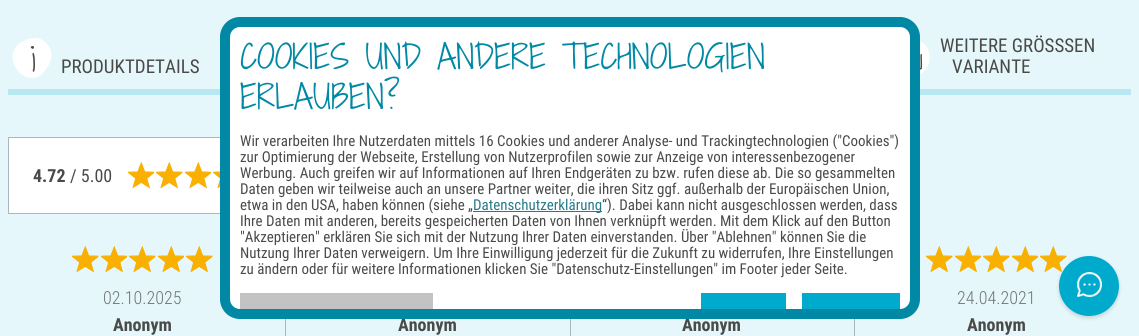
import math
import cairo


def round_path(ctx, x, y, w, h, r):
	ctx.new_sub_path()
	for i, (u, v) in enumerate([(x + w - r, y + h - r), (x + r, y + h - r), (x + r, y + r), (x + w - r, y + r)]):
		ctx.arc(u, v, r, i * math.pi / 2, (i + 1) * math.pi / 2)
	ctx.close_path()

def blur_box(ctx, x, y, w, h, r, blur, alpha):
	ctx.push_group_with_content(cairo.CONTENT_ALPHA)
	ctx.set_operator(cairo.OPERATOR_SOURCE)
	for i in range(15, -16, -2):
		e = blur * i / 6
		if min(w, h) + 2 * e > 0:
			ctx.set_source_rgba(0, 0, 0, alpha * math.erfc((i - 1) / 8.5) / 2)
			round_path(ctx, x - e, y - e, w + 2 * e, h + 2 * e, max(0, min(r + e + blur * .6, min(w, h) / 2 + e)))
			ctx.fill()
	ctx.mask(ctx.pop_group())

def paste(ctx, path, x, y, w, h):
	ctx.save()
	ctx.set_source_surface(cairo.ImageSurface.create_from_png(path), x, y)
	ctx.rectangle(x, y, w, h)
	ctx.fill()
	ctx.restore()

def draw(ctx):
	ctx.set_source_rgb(0.898, 0.965, 0.98)
	ctx.paint()
	paste(ctx, 'media/1.png', 12, 38, 40, 40)
	ctx.select_font_face('Roboto Condensed')
	ctx.set_font_size(19)
	ctx.set_source_rgb(0.29, 0.29, 0.286)
	ctx.move_to(61, 73)
	ctx.show_text('PRODUKTDETAILS')
	ctx.set_source_rgb(0.718, 0.906, 0.945)
	ctx.rectangle(8, 89, 212, 6)
	ctx.fill()
	paste(ctx, 'media/2.png', 920, 41, 10, 34)
	ctx.set_source_rgb(0.29, 0.29, 0.286)
	ctx.move_to(940, 52)
	ctx.show_text('WEITERE GRÖSSSEN')
	ctx.move_to(952, 73)
	ctx.show_text('VARIANTE')
	ctx.set_source_rgb(0.718, 0.906, 0.945)
	ctx.rectangle(920, 89, 211, 6)
	ctx.fill()
	ctx.set_source_rgb(1, 1, 1)
	ctx.rectangle(9, 138, 211, 75)
	ctx.fill()
	ctx.rectangle(8.5, 137.5, 330, 76)
	ctx.set_source_rgb(0.678, 0.71, 0.741)
	ctx.set_line_width(1)
	ctx.stroke()
	ctx.select_font_face('Roboto Condensed', cairo.FONT_SLANT_NORMAL, cairo.FONT_WEIGHT_BOLD)
	ctx.set_font_size(18)
	ctx.set_source_rgb(0.29, 0.29, 0.286)
	ctx.move_to(33, 182)
	ctx.show_text('4.72')
	ctx.select_font_face('Roboto Condensed')
	ctx.move_to(70, 182)
	ctx.show_text('/ 5.00')
	paste(ctx, 'media/3.png', 128, 162, 26, 27)
	paste(ctx, 'media/4.png', 156, 162, 27, 27)
	paste(ctx, 'media/3.png', 185, 162, 26, 27)
	paste(ctx, 'media/5.png', 213, 171, 7, 18)
	paste(ctx, 'media/6.png', 72, 246, 27, 27)
	paste(ctx, 'media/7.png', 101, 246, 26, 27)
	paste(ctx, 'media/6.png', 129, 246, 27, 27)
	paste(ctx, 'media/7.png', 158, 246, 26, 27)
	paste(ctx, 'media/6.png', 186, 246, 27, 27)
	ctx.select_font_face('Roboto Condensed Light')
	ctx.set_source_rgb(0.443, 0.459, 0.459)
	ctx.move_to(103, 304)
	ctx.show_text('02.10.2025')
	ctx.select_font_face('Roboto Condensed', cairo.FONT_SLANT_NORMAL, cairo.FONT_WEIGHT_BOLD)
	ctx.set_source_rgb(0.29, 0.29, 0.286)
	ctx.move_to(113, 331)
	ctx.show_text('Anonym')
	ctx.set_source_rgb(0.678, 0.71, 0.741)
	ctx.rectangle(285, 319, 1, 17)
	ctx.fill()
	ctx.set_source_rgb(0.29, 0.29, 0.286)
	ctx.move_to(398, 331)
	ctx.show_text('Anonym')
	ctx.set_source_rgb(0.678, 0.71, 0.741)
	ctx.rectangle(570, 319, 1, 17)
	ctx.fill()
	ctx.set_source_rgb(0.29, 0.29, 0.286)
	ctx.move_to(682, 331)
	ctx.show_text('Anonym')
	ctx.set_source_rgb(0.678, 0.71, 0.741)
	ctx.rectangle(854, 319, 1, 17)
	ctx.fill()
	paste(ctx, 'media/6.png', 926, 246, 27, 27)
	paste(ctx, 'media/7.png', 955, 246, 26, 27)
	paste(ctx, 'media/6.png', 983, 246, 27, 27)
	paste(ctx, 'media/7.png', 1012, 246, 26, 27)
	paste(ctx, 'media/6.png', 1040, 246, 27, 27)
	ctx.select_font_face('Roboto Condensed Light')
	ctx.set_source_rgb(0.443, 0.459, 0.459)
	ctx.move_to(957, 304)
	ctx.show_text('24.04.2021')
	ctx.select_font_face('Roboto Condensed', cairo.FONT_SLANT_NORMAL, cairo.FONT_WEIGHT_BOLD)
	ctx.set_source_rgb(0.29, 0.29, 0.286)
	ctx.move_to(967, 331)
	ctx.show_text('Anonym')
	ctx.set_source_rgb(0, 0.533, 0.647)
	round_path(ctx, 220, 17, 700, 302, 20)
	ctx.fill()
	ctx.set_source_rgb(1, 1, 1)
	round_path(ctx, 230, 27, 680, 282, 10)
	ctx.fill()
	ctx.select_font_face('Shadows Into Light Two Light')
	ctx.set_font_size(32)
	ctx.set_source_rgb(0, 0.533, 0.647)
	ctx.move_to(240, 69)
	ctx.show_text('COOKIES UND ANDERE TECHNOLOGIEN')
	ctx.move_to(240, 109)
	ctx.show_text('ERLAUBEN?')
	ctx.select_font_face('Roboto Condensed')
	ctx.set_font_size(15)
	ctx.set_source_rgb(0.29, 0.29, 0.286)
	for x, y, s in [
		(240, 146, 'Wir verarbeiten Ihre Nutzerdaten mittels 16 Cookies und anderer Analyse- und Trackingtechnologien ("Cookies")'),
		(240, 162, 'zur Optimierung der Webseite, Erstellung von Nutzerprofilen sowie zur Anzeige von interessenbezogener'),
		(240, 178, 'Werbung. Auch greifen wir auf Informationen auf Ihren Endgeräten zu bzw. rufen diese ab. Die so gesammelten'),
		(240, 194, 'Daten geben wir teilweise auch an unsere Partner weiter, die ihren Sitz ggf. außerhalb der Europäischen Union,'),
		(240, 210, 'etwa in den USA, haben können (siehe „'),
	]:
		ctx.move_to(x, y)
		ctx.show_text(s)
	ctx.set_source_rgb(0.145, 0.478, 0.545)
	ctx.rectangle(473, 211, 129, 1)
	ctx.fill()
	ctx.move_to(473, 210)
	ctx.show_text('Datenschutzerklärung')
	ctx.set_source_rgb(0.29, 0.29, 0.286)
	for x, y, s in [
		(602, 210, '“). Dabei kann nicht ausgeschlossen werden, dass'),
		(240, 226, 'Ihre Daten mit anderen, bereits gespeicherten Daten von Ihnen verknüpft werden. Mit dem Klick auf den Button'),
		(240, 242, '"Akzeptieren" erklären Sie sich mit der Nutzung Ihrer Daten einverstanden. Über "Ablehnen" können Sie die'),
		(240, 258, 'Nutzung Ihrer Daten verweigern. Um Ihre Einwilligung jederzeit für die Zukunft zu widerrufen, Ihre Einstellungen'),
		(240, 274, 'zu ändern oder für weitere Informationen klicken Sie "Datenschutz-Einstellungen" im Footer jeder Seite.'),
	]:
		ctx.move_to(x, y)
		ctx.show_text(s)
	ctx.set_source_rgb(0.765, 0.765, 0.765)
	ctx.rectangle(240, 293, 193, 16)
	ctx.fill()
	ctx.set_source_rgb(0, 0.667, 0.804)
	ctx.rectangle(701, 293, 85, 16)
	ctx.rectangle(802, 293, 98, 16)
	ctx.fill()
	ctx.set_source_rgb(0.086, 0.086, 0.086)
	blur_box(ctx, 1059, 258, 60, 60, 30, 2, 0.16)
	ctx.set_source_rgb(0, 0.667, 0.804)
	ctx.arc(1089, 286, 30, 0, 2 * math.pi)
	ctx.fill()
	paste(ctx, 'media/8.png', 1077, 272, 25, 25)


surface = cairo.ImageSurface(cairo.FORMAT_RGB24, 1139, 336)
ctx = cairo.Context(surface)
options = cairo.FontOptions()
options.set_hint_metrics(cairo.HINT_METRICS_OFF)
options.set_hint_style(cairo.HINT_STYLE_NONE)
ctx.set_font_options(options)
ctx.set_miter_limit(4)
draw(ctx)
surface.write_to_png('image.png')
